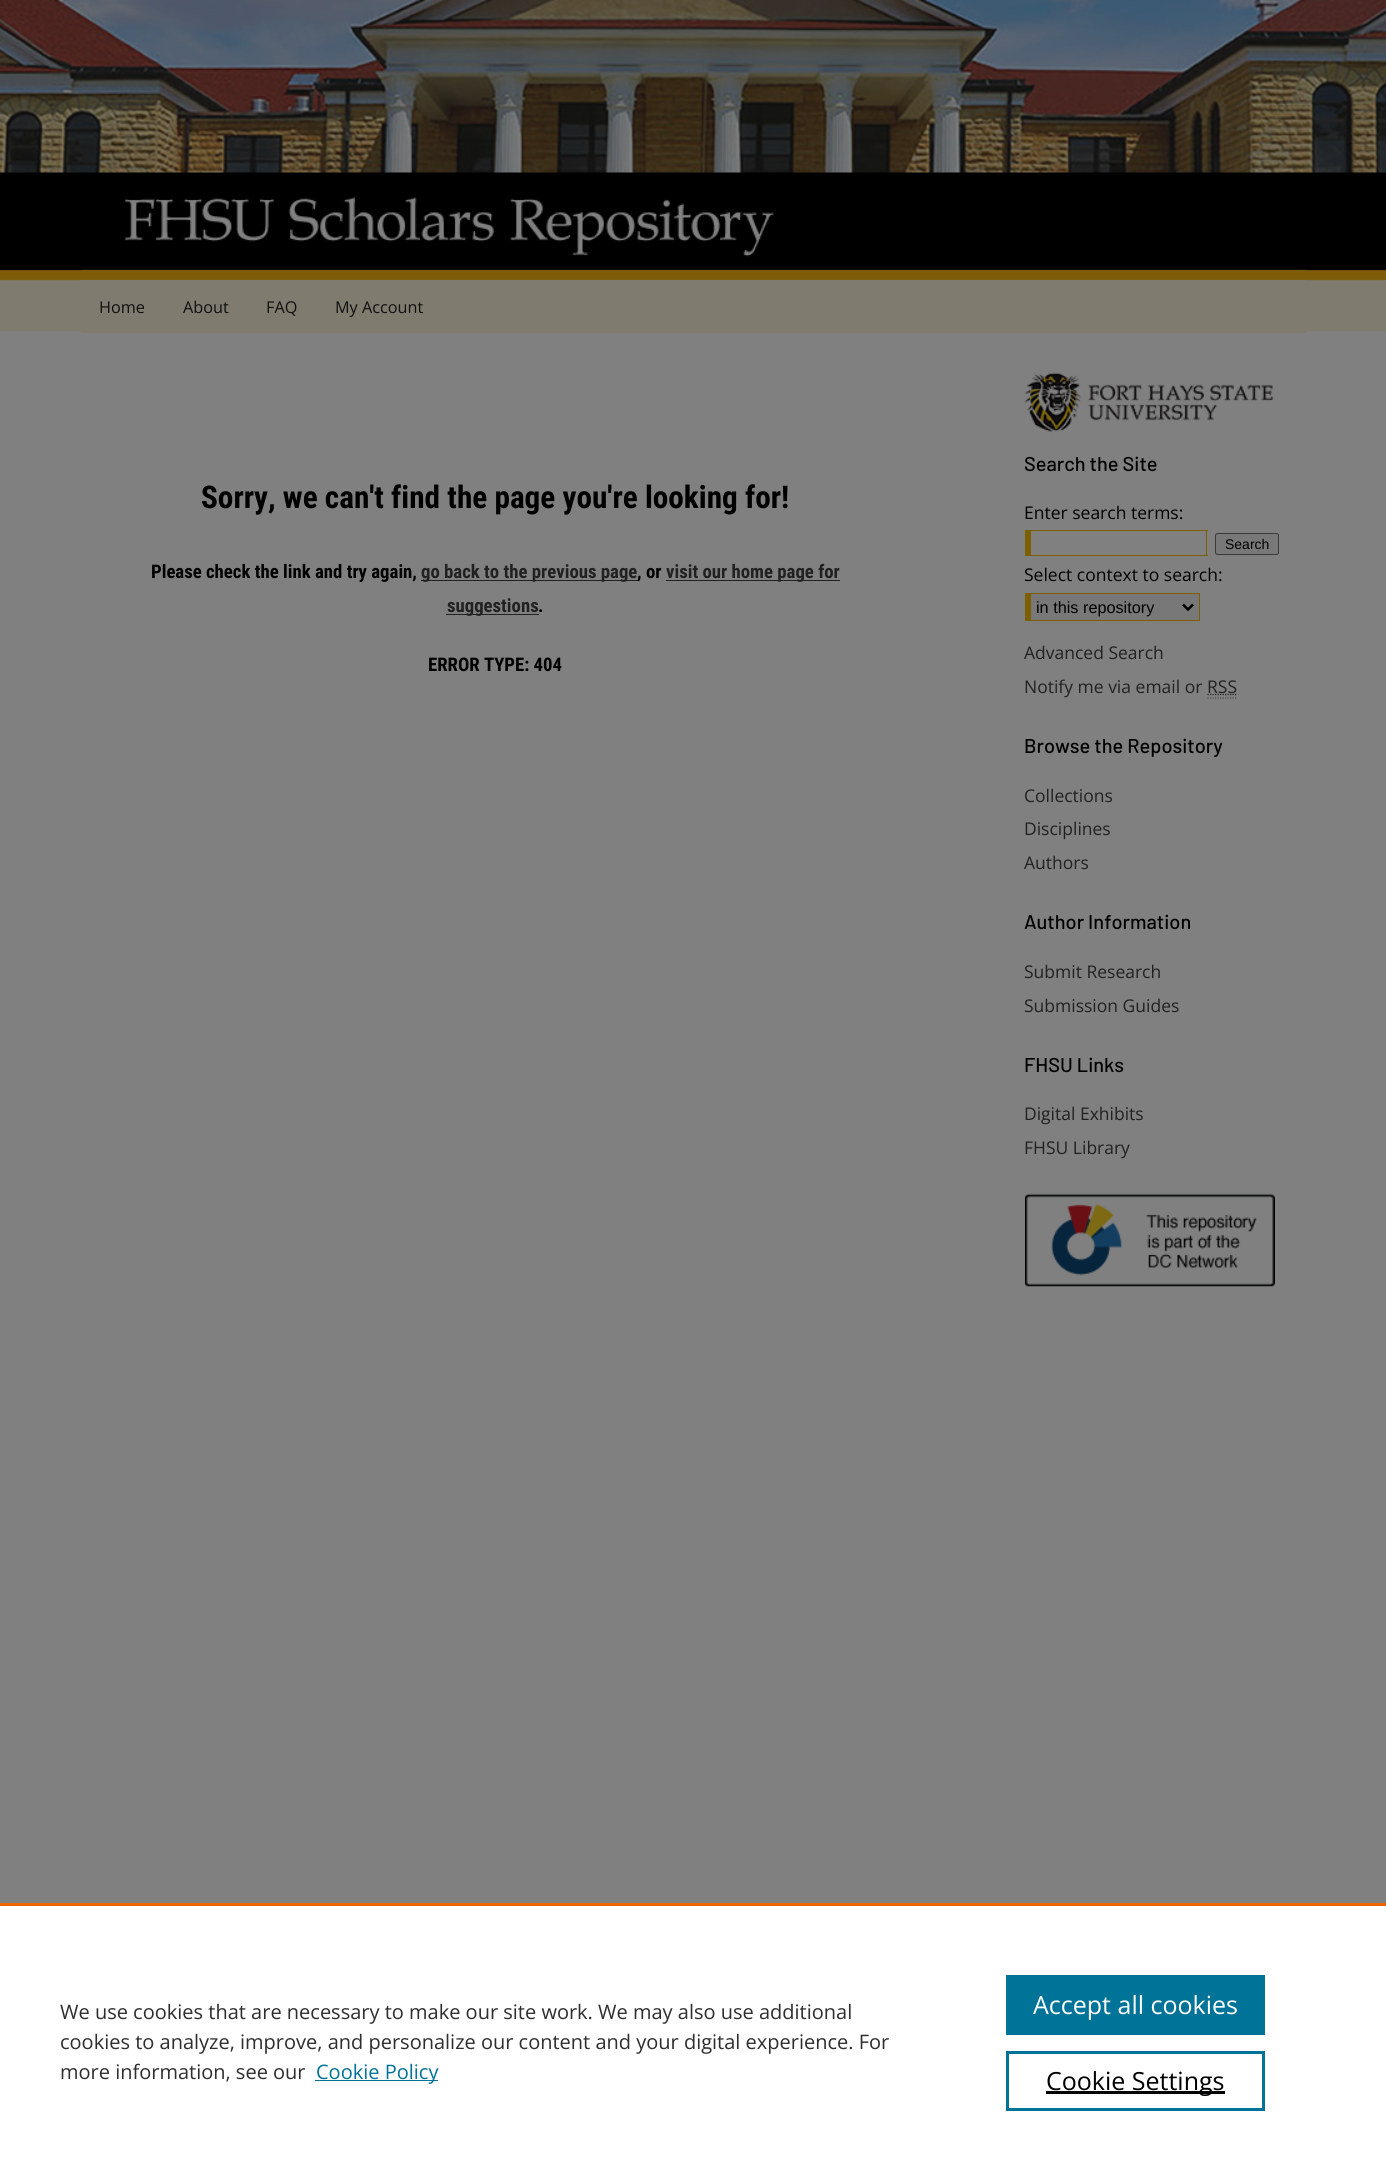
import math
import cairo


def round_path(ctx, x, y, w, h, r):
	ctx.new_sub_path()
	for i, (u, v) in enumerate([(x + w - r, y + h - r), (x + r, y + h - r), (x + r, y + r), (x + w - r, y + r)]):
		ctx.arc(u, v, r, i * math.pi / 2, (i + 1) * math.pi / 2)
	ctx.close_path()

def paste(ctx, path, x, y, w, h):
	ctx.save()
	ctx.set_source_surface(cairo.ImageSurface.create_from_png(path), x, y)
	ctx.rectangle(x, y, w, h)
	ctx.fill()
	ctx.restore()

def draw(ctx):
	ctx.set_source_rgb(0.502, 0.502, 0.502)
	ctx.paint()
	paste(ctx, 'media/1.png', 0, 0, 1386, 332)
	paste(ctx, 'media/2.png', 81, 197, 1226, 74)
	ctx.set_source_rgb(0.498, 0.482, 0.431)
	ctx.rectangle(81, 280, 1225, 53)
	ctx.fill()
	ctx.select_font_face('Open Sans')
	ctx.set_font_size(16.25)
	ctx.set_source_rgb(0.063, 0.063, 0.063)
	for x, y, s in [
		(99, 313, 'Home'),
		(183, 313, 'About'),
		(266, 313, 'FAQ'),
		(335, 313, 'My Account'),
	]:
		ctx.move_to(x, y)
		ctx.show_text(s)
	ctx.select_font_face('Roboto Condensed', cairo.FONT_SLANT_NORMAL, cairo.FONT_WEIGHT_BOLD)
	ctx.set_font_size(31.25)
	ctx.set_source_rgb(0, 0, 0)
	ctx.move_to(201, 508)
	ctx.show_text('Sorry, we can\'t find the page you\'re looking for!')
	ctx.set_font_size(18.75)
	ctx.move_to(151, 578)
	ctx.show_text('Please check the link and try again,')
	ctx.set_source_rgb(0.129, 0.129, 0.129)
	ctx.rectangle(421, 580, 217, 1)
	ctx.fill()
	ctx.move_to(421, 578)
	ctx.show_text('go back to the previous page')
	ctx.set_source_rgb(0, 0, 0)
	ctx.move_to(637, 578)
	ctx.show_text(', or')
	ctx.set_source_rgb(0.129, 0.129, 0.129)
	ctx.rectangle(666, 580, 174, 1)
	ctx.fill()
	ctx.move_to(666, 578)
	ctx.show_text('visit our home page for')
	ctx.rectangle(446, 614, 93, 1)
	ctx.fill()
	ctx.move_to(447, 612)
	ctx.show_text('suggestions')
	ctx.set_source_rgb(0, 0, 0)
	ctx.move_to(538, 612)
	ctx.show_text('.')
	ctx.move_to(428, 671)
	ctx.show_text('ERROR TYPE: 404')
	paste(ctx, 'media/3.png', 1024, 372, 249, 61)
	ctx.select_font_face('Barlow Medium')
	ctx.set_font_size(20)
	ctx.move_to(1024, 471)
	ctx.show_text('Search the Site')
	ctx.select_font_face('Open Sans')
	ctx.set_font_size(17.5)
	ctx.move_to(1024, 519)
	ctx.show_text('Enter search terms:')
	ctx.set_source_rgb(0.482, 0.373, 0)
	ctx.rectangle(1025, 530, 183, 1)
	ctx.rectangle(1206, 530, 1, 26)
	ctx.rectangle(1025, 555, 183, 1)
	ctx.rectangle(1025, 530, 6, 26)
	ctx.fill()
	ctx.set_source_rgb(0.471, 0.471, 0.471)
	round_path(ctx, 1215.5, 533.5, 63, 21, 2)
	ctx.fill_preserve()
	ctx.set_source_rgb(0.231, 0.231, 0.231)
	ctx.set_line_width(1)
	ctx.stroke()
	ctx.select_font_face('Liberation Sans')
	ctx.set_font_size(14)
	ctx.set_source_rgb(0, 0, 0)
	ctx.move_to(1225, 549)
	ctx.show_text('Search')
	ctx.select_font_face('Open Sans')
	ctx.set_font_size(17.5)
	ctx.move_to(1024, 581)
	ctx.show_text('Select context to search:')
	ctx.set_source_rgb(0.471, 0.471, 0.471)
	ctx.rectangle(1031, 594, 168, 26)
	ctx.fill()
	ctx.set_source_rgb(0.482, 0.373, 0)
	ctx.rectangle(1025, 593, 175, 1)
	ctx.rectangle(1199, 593, 1, 28)
	ctx.rectangle(1025, 620, 175, 1)
	ctx.rectangle(1025, 593, 6, 28)
	ctx.fill()
	ctx.new_path()
	ctx.move_to(1183, 604.5)
	ctx.line_to(1188, 609.5)
	ctx.line_to(1193, 604.5)
	ctx.set_source_rgb(0, 0, 0)
	ctx.set_line_width(2.5)
	ctx.stroke()
	ctx.select_font_face('Liberation Sans')
	ctx.set_font_size(16.25)
	ctx.move_to(1036, 613)
	ctx.show_text('in this repository')
	ctx.select_font_face('Open Sans')
	ctx.set_font_size(17.5)
	ctx.set_source_rgb(0.129, 0.129, 0.129)
	ctx.move_to(1024, 659)
	ctx.show_text('Advanced Search')
	ctx.move_to(1024, 693)
	ctx.show_text('Notify me via email or')
	ctx.new_path()
	ctx.move_to(1207.5, 694.5)
	ctx.line_to(1237.5, 694.5)
	ctx.set_line_width(1.2)
	ctx.set_dash([1.25, 1.25])
	ctx.stroke()
	ctx.move_to(1207, 693)
	ctx.show_text('RSS')
	ctx.new_path()
	ctx.move_to(1207.5, 698)
	ctx.line_to(1237.5, 698)
	ctx.set_source_rgb(0.302, 0.302, 0.302)
	ctx.stroke()
	ctx.select_font_face('Barlow Medium')
	ctx.set_font_size(20)
	ctx.set_source_rgb(0, 0, 0)
	ctx.move_to(1024, 753)
	ctx.show_text('Browse the Repository')
	ctx.select_font_face('Open Sans')
	ctx.set_font_size(17.5)
	ctx.set_source_rgb(0.129, 0.129, 0.129)
	for x, y, s in [
		(1024, 802, 'Collections'),
		(1024, 835, 'Disciplines'),
		(1024, 869, 'Authors'),
	]:
		ctx.move_to(x, y)
		ctx.show_text(s)
	ctx.select_font_face('Barlow Medium')
	ctx.set_font_size(20)
	ctx.set_source_rgb(0, 0, 0)
	ctx.move_to(1024, 929)
	ctx.show_text('Author Information')
	ctx.select_font_face('Open Sans')
	ctx.set_font_size(17.5)
	ctx.set_source_rgb(0.129, 0.129, 0.129)
	ctx.move_to(1024, 978)
	ctx.show_text('Submit Research')
	ctx.move_to(1024, 1012)
	ctx.show_text('Submission Guides')
	ctx.select_font_face('Barlow Medium')
	ctx.set_font_size(20)
	ctx.set_source_rgb(0, 0, 0)
	ctx.move_to(1024, 1072)
	ctx.show_text('FHSU Links')
	ctx.select_font_face('Open Sans')
	ctx.set_font_size(17.5)
	ctx.set_source_rgb(0.129, 0.129, 0.129)
	ctx.move_to(1024, 1120)
	ctx.show_text('Digital Exhibits')
	ctx.move_to(1024, 1154)
	ctx.show_text('FHSU Library')
	paste(ctx, 'media/4.png', 1025, 1193, 250, 94)
	ctx.set_source_rgb(1, 1, 1)
	ctx.rectangle(0, 1906, 1386, 271)
	ctx.fill()
	ctx.set_source_rgb(0.922, 0.396, 0)
	ctx.rectangle(0, 1903, 1386, 3)
	ctx.fill()
	ctx.set_font_size(20)
	ctx.set_source_rgb(0.18, 0.18, 0.18)
	for x, y, s in [
		(60, 2019, 'We use cookies that are necessary to make our site work. We may also use additional'),
		(60, 2049, 'cookies to analyze, improve, and personalize our content and your digital experience. For'),
		(60, 2079, 'more information, see our'),
	]:
		ctx.move_to(x, y)
		ctx.show_text(s)
	ctx.set_source_rgb(0, 0.451, 0.596)
	ctx.rectangle(315, 2080, 123, 1)
	ctx.fill()
	ctx.move_to(316, 2079)
	ctx.show_text('Cookie Policy')
	ctx.rectangle(1006, 1975, 259, 60)
	ctx.fill()
	ctx.set_font_size(25)
	ctx.set_source_rgb(1, 1, 1)
	ctx.move_to(1033, 2014)
	ctx.show_text('Accept all cookies')
	ctx.rectangle(1007.5, 2052.5, 256, 57)
	ctx.set_source_rgb(0, 0.451, 0.596)
	ctx.set_line_width(3)
	ctx.set_dash([])
	ctx.stroke()
	ctx.set_source_rgb(0, 0, 0)
	ctx.rectangle(1046, 2091, 179, 3)
	ctx.fill()
	ctx.move_to(1046, 2090)
	ctx.show_text('Cookie Settings')


surface = cairo.ImageSurface(cairo.FORMAT_RGB24, 1386, 2177)
ctx = cairo.Context(surface)
options = cairo.FontOptions()
options.set_hint_metrics(cairo.HINT_METRICS_OFF)
options.set_hint_style(cairo.HINT_STYLE_NONE)
ctx.set_font_options(options)
ctx.set_miter_limit(4)
draw(ctx)
surface.write_to_png('image.png')
